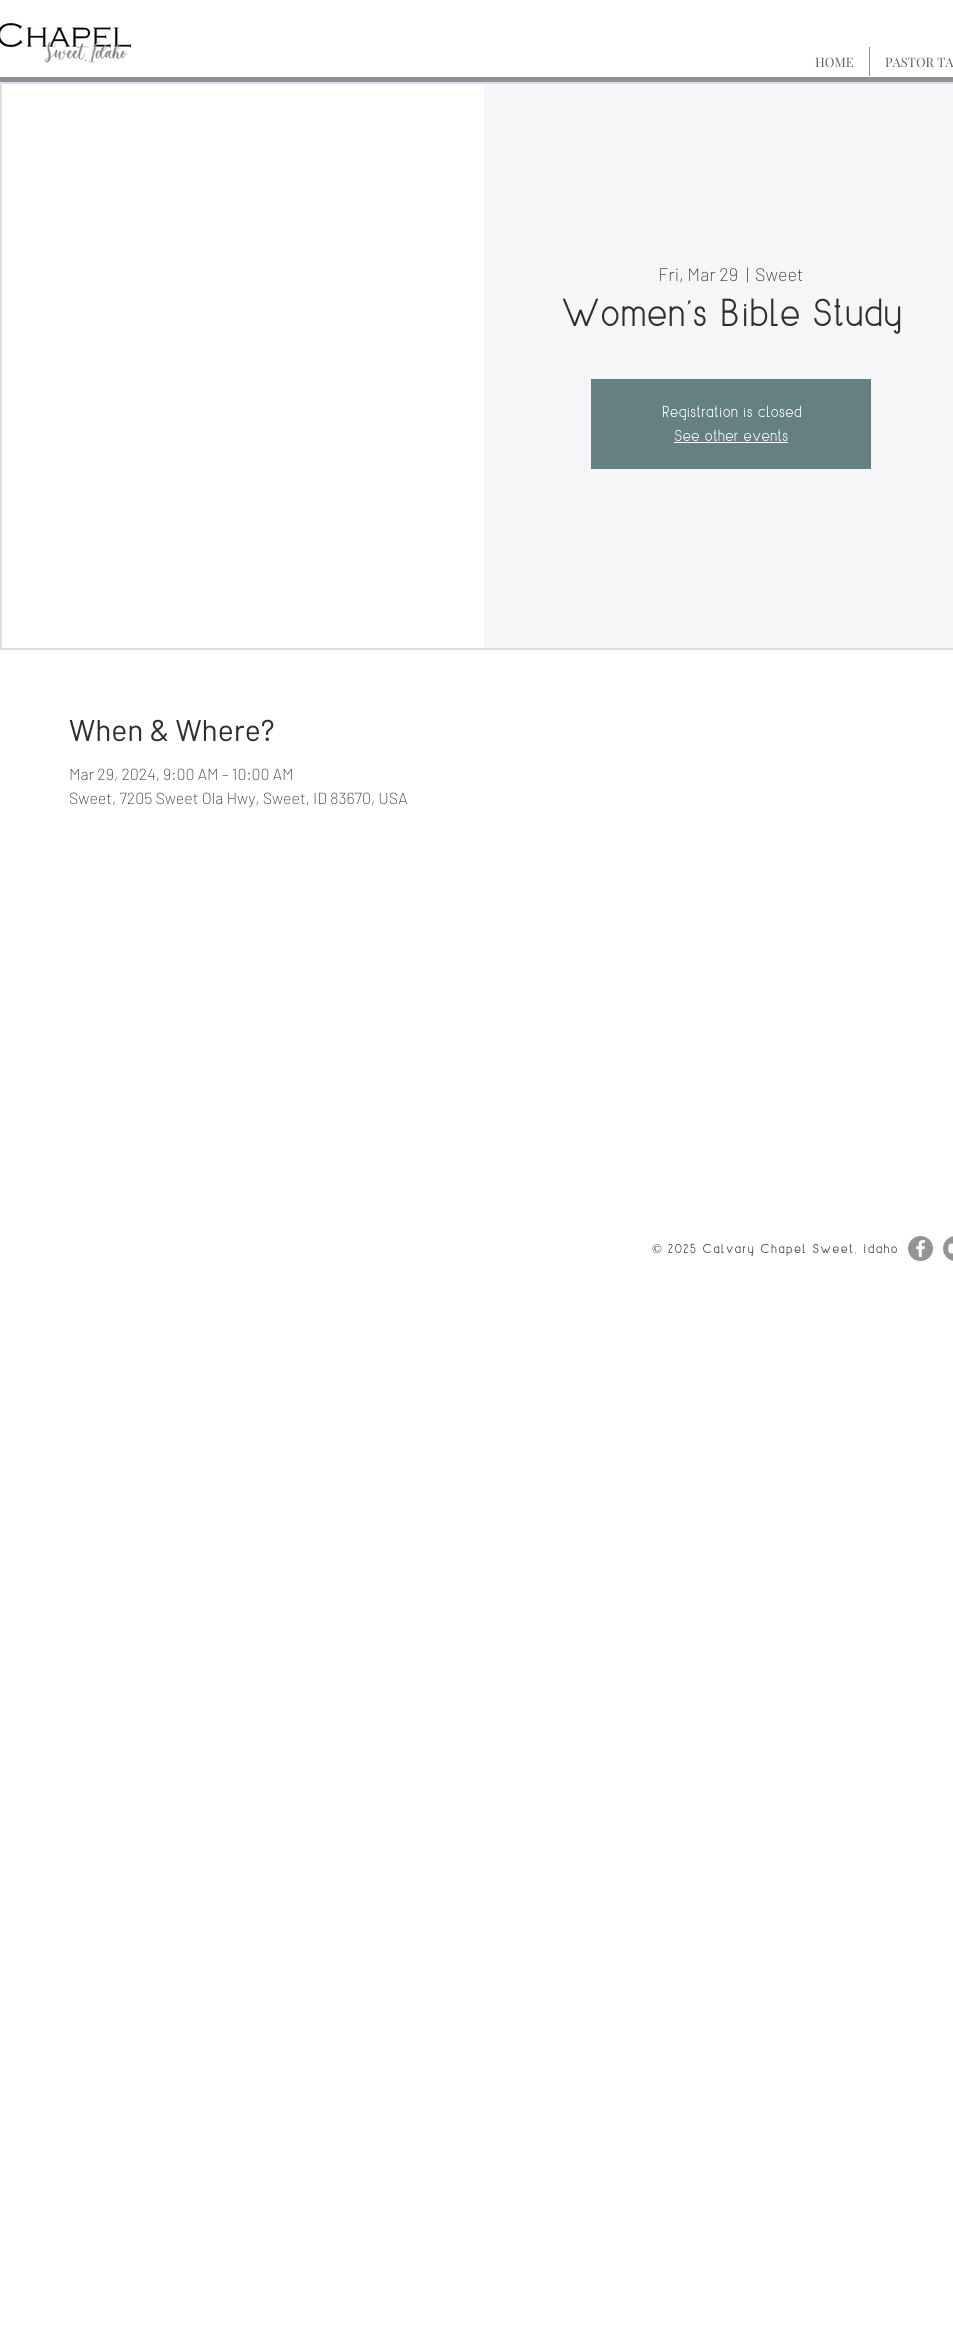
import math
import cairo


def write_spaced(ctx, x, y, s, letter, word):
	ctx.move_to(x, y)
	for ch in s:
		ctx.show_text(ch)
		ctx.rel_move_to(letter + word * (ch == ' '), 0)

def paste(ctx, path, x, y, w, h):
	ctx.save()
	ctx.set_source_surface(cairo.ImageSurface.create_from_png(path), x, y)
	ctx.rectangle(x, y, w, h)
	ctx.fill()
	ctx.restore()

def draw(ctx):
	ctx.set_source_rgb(1, 1, 1)
	ctx.paint()
	paste(ctx, 'media/1.png', 0, 22, 132, 41)
	ctx.select_font_face('Playfair Display')
	ctx.set_font_size(13)
	ctx.set_source_rgb(0.373, 0.369, 0.412)
	ctx.move_to(815, 67)
	ctx.show_text('HOME')
	ctx.set_source_rgb(0.557, 0.565, 0.612)
	ctx.rectangle(869, 47, 1, 29)
	ctx.fill()
	ctx.set_source_rgb(0.373, 0.369, 0.412)
	ctx.move_to(885, 67)
	ctx.show_text('PASTOR TA')
	ctx.set_source_rgb(0.557, 0.565, 0.612)
	ctx.rectangle(0, 77, 953, 5)
	ctx.fill()
	ctx.rectangle(1, 83, 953, 566)
	ctx.set_source_rgb(0.867, 0.871, 0.882)
	ctx.stroke()
	ctx.set_source_rgb(0.957, 0.961, 0.965)
	ctx.rectangle(484, 84, 469, 564)
	ctx.fill()
	ctx.select_font_face('Barlow ExtraLight')
	ctx.set_font_size(18)
	ctx.set_source_rgb(0.184, 0.18, 0.18)
	for x, y, s in [
		(658, 281, 'Fri, Mar 29'),
		(746, 281, '|'),
		(755, 281, 'Sweet'),
	]:
		ctx.move_to(x, y)
		ctx.show_text(s)
	ctx.select_font_face('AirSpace')
	ctx.set_font_size(39)
	ctx.move_to(561, 326)
	ctx.show_text('Women\'s Bible Study')
	ctx.set_source_rgb(0.396, 0.502, 0.514)
	ctx.rectangle(591, 379, 280, 90)
	ctx.fill()
	ctx.set_font_size(16)
	ctx.set_source_rgb(1, 1, 1)
	ctx.move_to(661, 417)
	ctx.show_text('Registration is closed')
	ctx.move_to(674, 441)
	ctx.show_text('See other events')
	ctx.rectangle(674, 442, 114, 1)
	ctx.fill()
	ctx.select_font_face('Barlow')
	ctx.set_font_size(30)
	ctx.set_source_rgb(0.184, 0.18, 0.18)
	ctx.move_to(69, 741)
	ctx.show_text('When & Where?')
	ctx.select_font_face('Barlow ExtraLight')
	ctx.set_font_size(16)
	ctx.move_to(69, 780)
	ctx.show_text('Mar 29, 2024, 9:00 AM – 10:00 AM')
	ctx.move_to(69, 804)
	ctx.show_text('Sweet, 7205 Sweet Ola Hwy, Sweet, ID 83670, USA')
	ctx.select_font_face('Liberation Serif')
	ctx.set_font_size(13)
	write_spaced(ctx, 652, 1253, '©', 1.3, 0)
	ctx.select_font_face('AirSpace')
	write_spaced(ctx, 668, 1253, '2025 Calvary Chapel Sweet, Idaho', 1.3, 0)
	paste(ctx, 'media/2.png', 908, 1236, 25, 25)
	paste(ctx, 'media/3.png', 943, 1236, 10, 25)


surface = cairo.ImageSurface(cairo.FORMAT_RGB24, 953, 2337)
ctx = cairo.Context(surface)
options = cairo.FontOptions()
options.set_hint_metrics(cairo.HINT_METRICS_OFF)
options.set_hint_style(cairo.HINT_STYLE_NONE)
ctx.set_font_options(options)
ctx.set_miter_limit(4)
draw(ctx)
surface.write_to_png('image.png')
